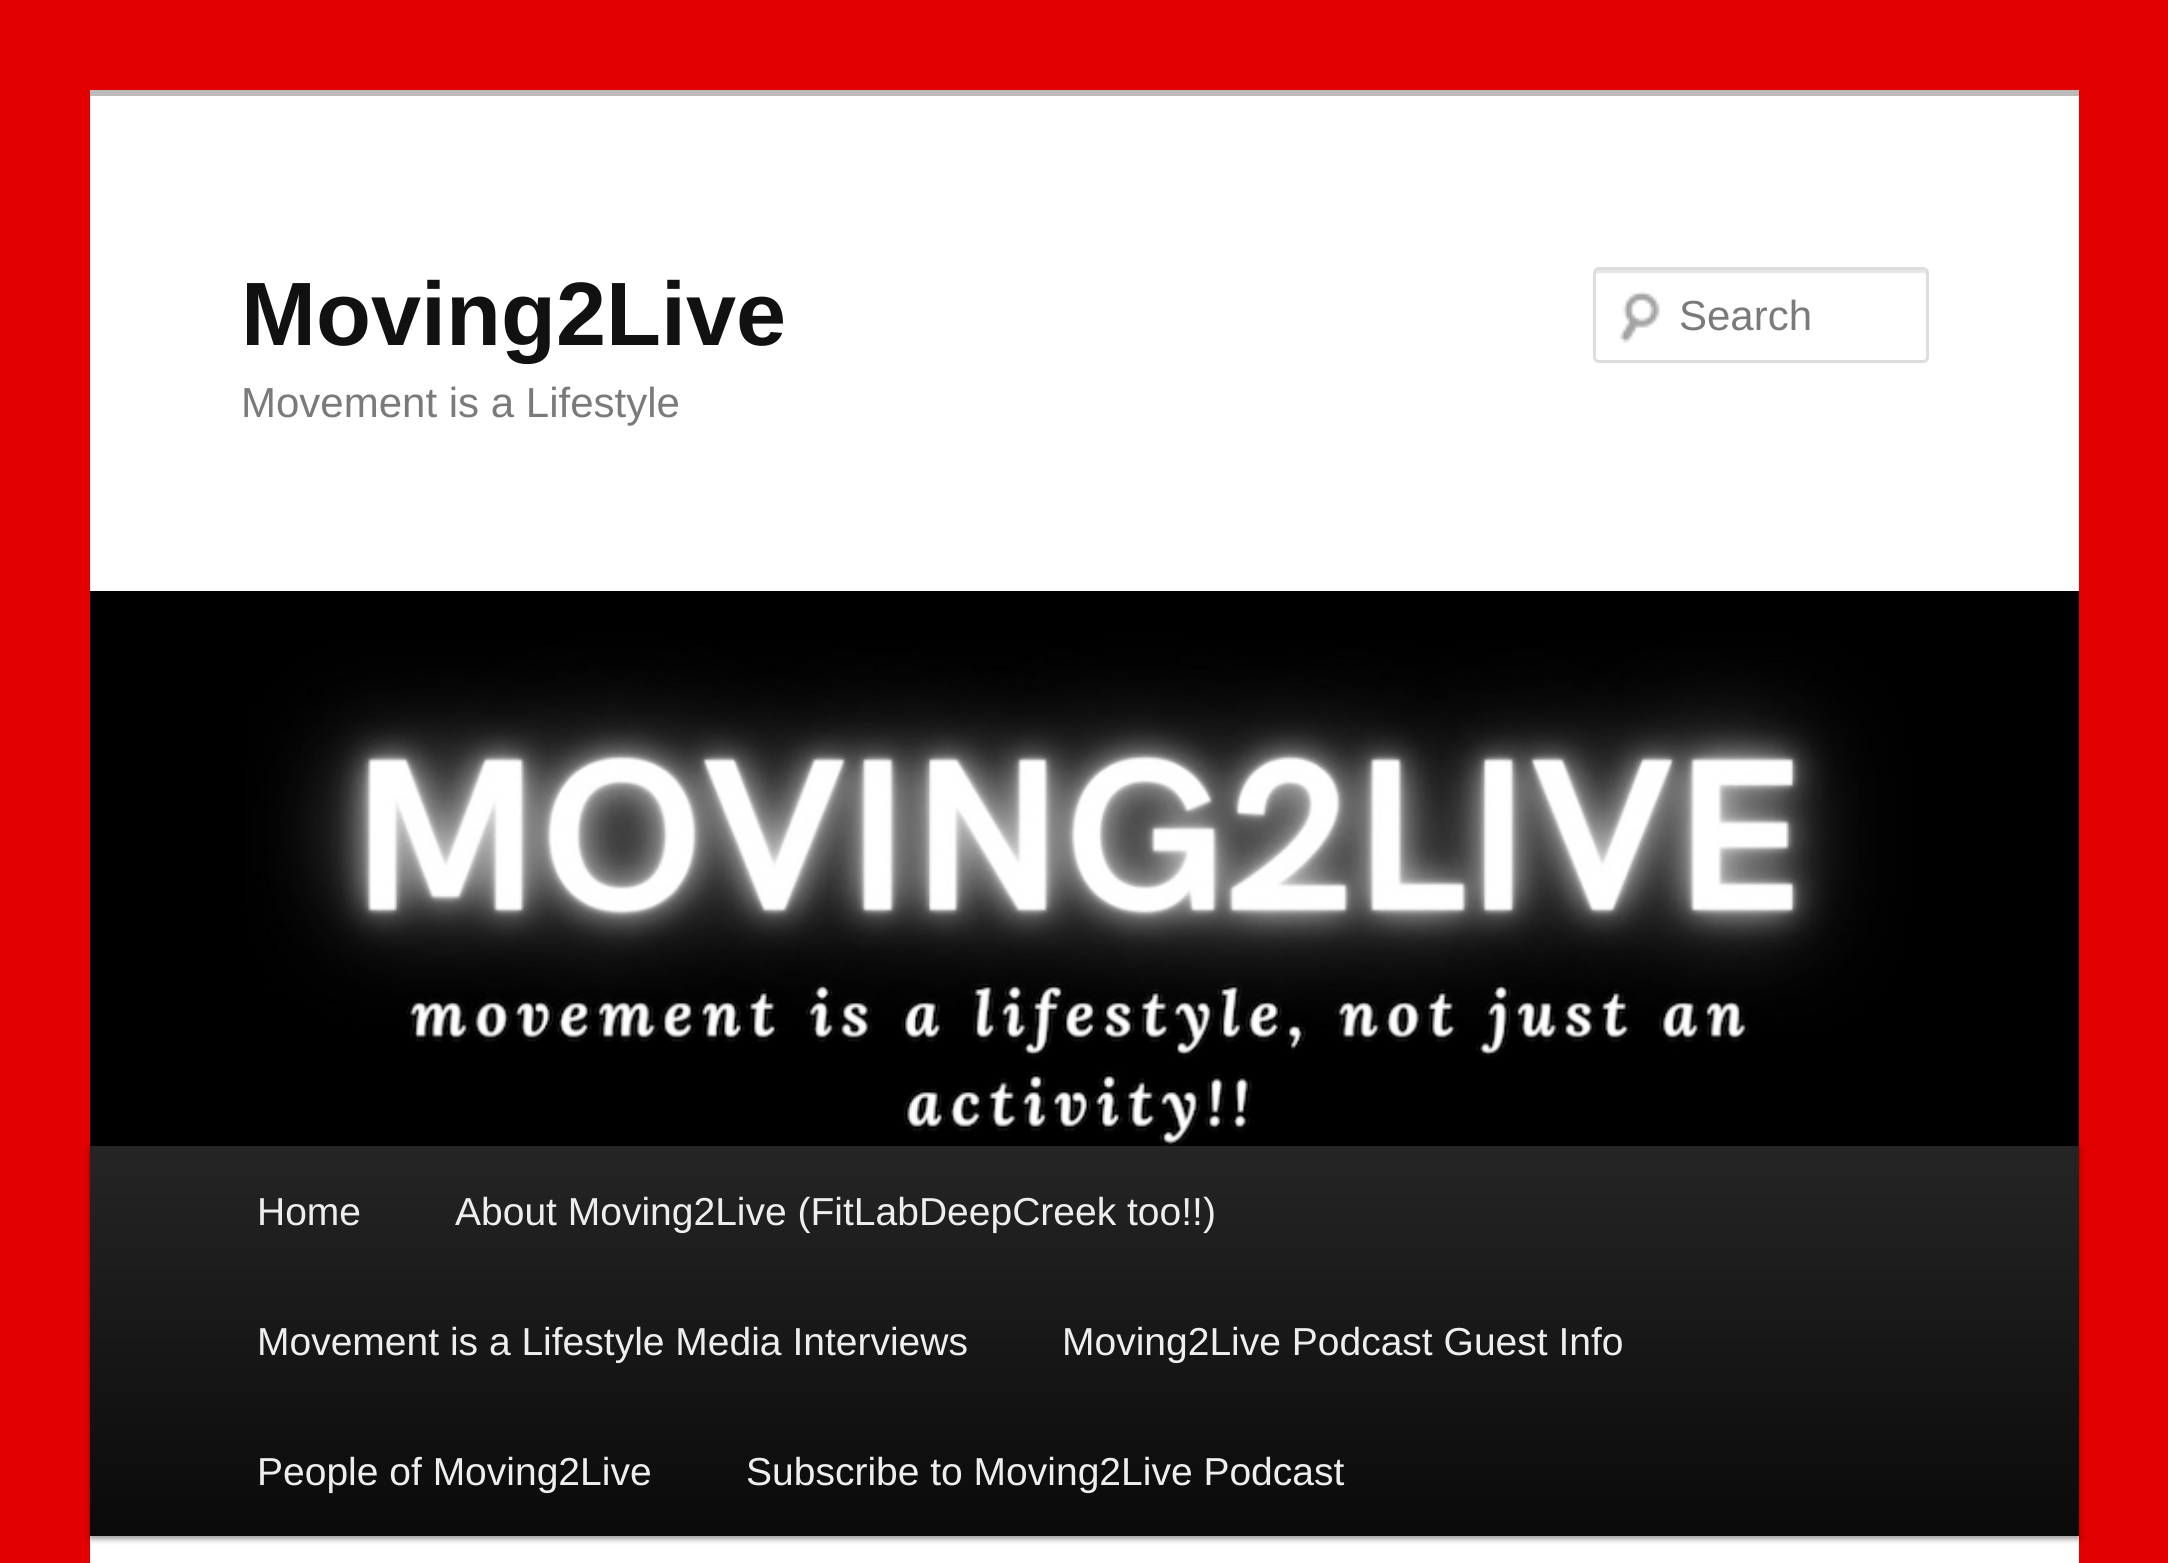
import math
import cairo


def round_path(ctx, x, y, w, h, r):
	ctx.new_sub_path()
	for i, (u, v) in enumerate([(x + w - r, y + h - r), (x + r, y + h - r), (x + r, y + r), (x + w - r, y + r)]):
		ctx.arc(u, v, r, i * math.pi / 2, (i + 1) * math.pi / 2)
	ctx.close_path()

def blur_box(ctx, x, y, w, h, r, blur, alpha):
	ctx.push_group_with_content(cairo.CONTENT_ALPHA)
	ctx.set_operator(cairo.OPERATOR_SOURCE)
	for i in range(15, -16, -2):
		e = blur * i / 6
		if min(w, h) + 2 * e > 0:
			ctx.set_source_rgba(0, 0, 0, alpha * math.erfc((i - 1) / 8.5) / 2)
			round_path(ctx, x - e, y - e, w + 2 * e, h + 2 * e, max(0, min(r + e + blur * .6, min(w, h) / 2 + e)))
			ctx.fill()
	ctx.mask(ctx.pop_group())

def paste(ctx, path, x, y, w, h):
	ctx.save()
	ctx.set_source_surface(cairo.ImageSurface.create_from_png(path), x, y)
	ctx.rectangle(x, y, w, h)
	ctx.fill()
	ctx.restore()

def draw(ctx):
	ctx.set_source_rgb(0.886, 0, 0)
	ctx.paint()
	ctx.set_source_rgb(1, 1, 1)
	ctx.rectangle(90, 96, 1989, 1467)
	ctx.fill()
	ctx.set_source_rgb(0.733, 0.733, 0.733)
	ctx.rectangle(90, 90, 1989, 6)
	ctx.fill()
	ctx.select_font_face('Liberation Sans', cairo.FONT_SLANT_NORMAL, cairo.FONT_WEIGHT_BOLD)
	ctx.set_font_size(90)
	ctx.set_source_rgb(0.067, 0.067, 0.067)
	ctx.move_to(241, 345)
	ctx.show_text('Moving2Live')
	ctx.select_font_face('Liberation Sans')
	ctx.set_font_size(42)
	ctx.set_source_rgb(0.478, 0.478, 0.478)
	ctx.move_to(241, 417)
	ctx.show_text('Movement is a Lifestyle')
	paste(ctx, 'media/1.png', 1619, 291, 41, 52)
	ctx.set_source_rgb(0.902, 0.902, 0.902)
	ctx.new_path()
	ctx.move_to(1599, 273)
	ctx.line_to(1923, 273)
	ctx.curve_to(1925, 273, 1926, 274, 1926, 276)
	ctx.line_to(1926, 273)
	ctx.curve_to(1926, 271, 1925, 270, 1923, 270)
	ctx.line_to(1599, 270)
	ctx.curve_to(1597, 270, 1596, 271, 1596, 273)
	ctx.line_to(1596, 276)
	ctx.curve_to(1596, 274, 1597, 273, 1599, 273)
	ctx.close_path()
	ctx.fill()
	round_path(ctx, 1594.5, 268.5, 333, 93, 4.5)
	ctx.set_source_rgb(0.867, 0.867, 0.867)
	ctx.set_line_width(3)
	ctx.stroke()
	ctx.set_source_rgb(0.478, 0.478, 0.478)
	ctx.move_to(1679, 330)
	ctx.show_text('Search')
	ctx.set_source_rgb(0, 0, 0)
	blur_box(ctx, 90, 1149, 1989, 390, 0, 3, 0.4)
	paste(ctx, 'media/2.png', 90, 591, 1989, 555)
	gradient = cairo.LinearGradient(1085, 1146, 1085, 1536)
	gradient.add_color_stop_rgba(0, 0.145, 0.145, 0.145, 1)
	gradient.add_color_stop_rgba(1, 0.039, 0.039, 0.039, 1)
	ctx.set_source(gradient)
	ctx.rectangle(90, 1146, 1989, 390)
	ctx.fill()
	ctx.set_font_size(39)
	ctx.set_source_rgb(0.933, 0.933, 0.933)
	for x, y, s in [
		(257, 1225, 'Home'),
		(455, 1225, 'About Moving2Live (FitLabDeepCreek too!!)'),
		(257, 1355, 'Movement is a Lifestyle Media Interviews'),
		(1062, 1355, 'Moving2Live Podcast Guest Info'),
		(257, 1485, 'People of Moving2Live'),
		(746, 1485, 'Subscribe to Moving2Live Podcast'),
	]:
		ctx.move_to(x, y)
		ctx.show_text(s)


surface = cairo.ImageSurface(cairo.FORMAT_RGB24, 2168, 1563)
ctx = cairo.Context(surface)
options = cairo.FontOptions()
options.set_hint_metrics(cairo.HINT_METRICS_OFF)
options.set_hint_style(cairo.HINT_STYLE_NONE)
ctx.set_font_options(options)
ctx.set_miter_limit(4)
draw(ctx)
surface.write_to_png('image.png')
